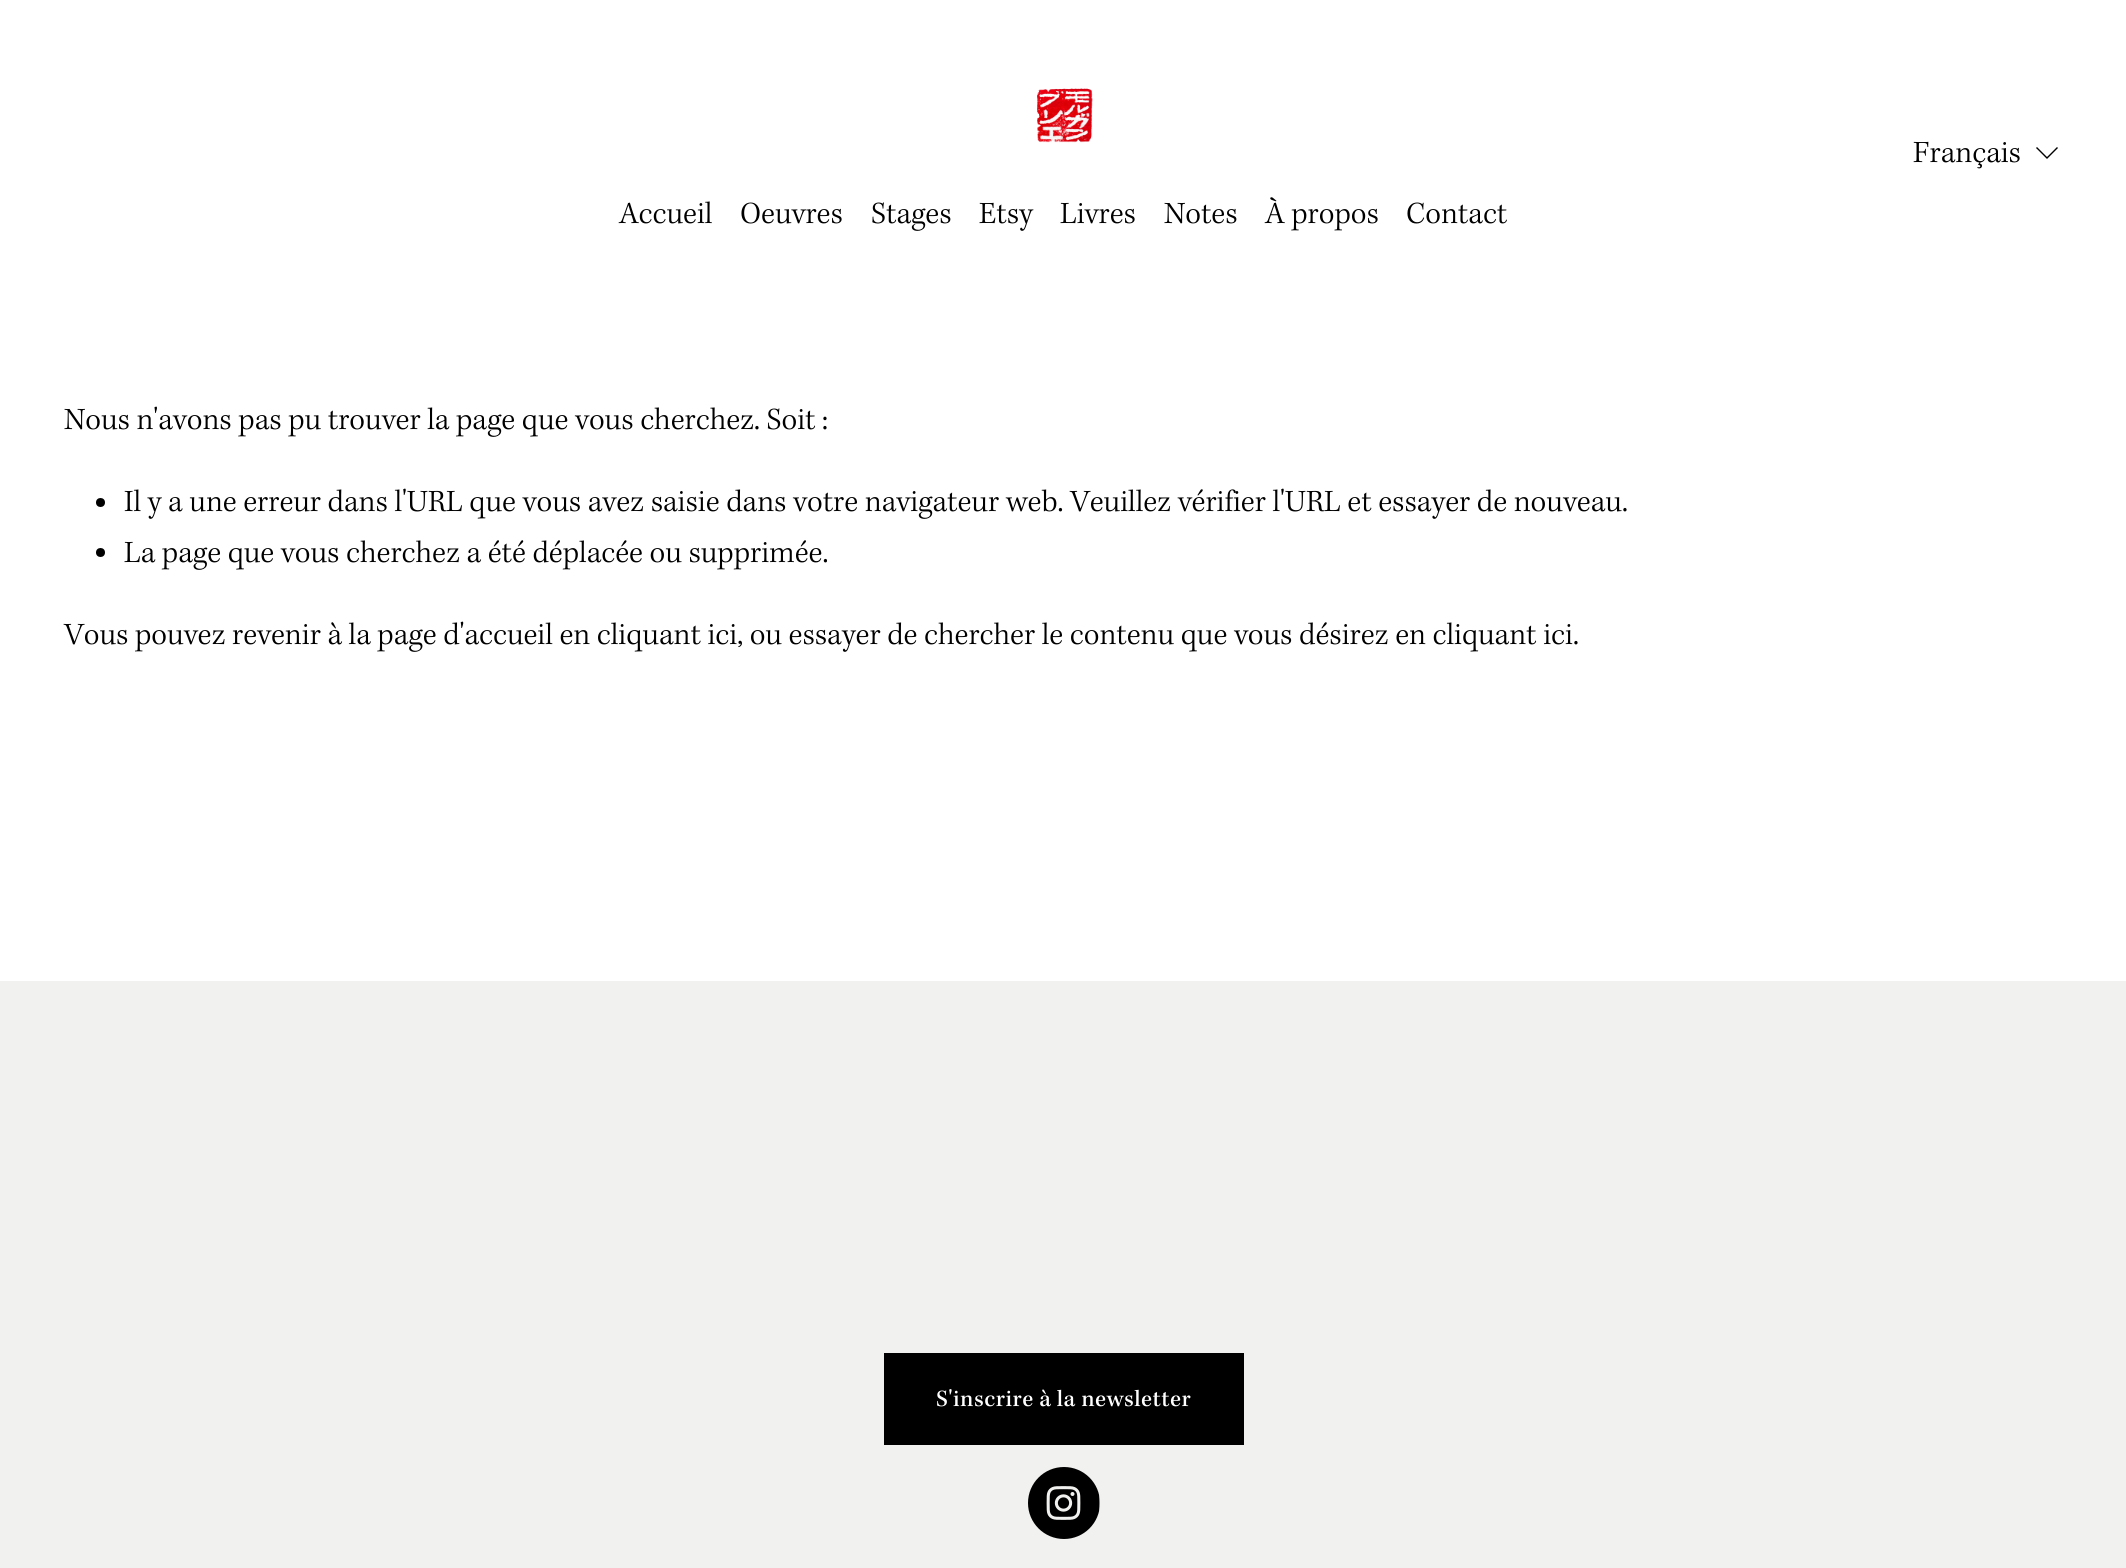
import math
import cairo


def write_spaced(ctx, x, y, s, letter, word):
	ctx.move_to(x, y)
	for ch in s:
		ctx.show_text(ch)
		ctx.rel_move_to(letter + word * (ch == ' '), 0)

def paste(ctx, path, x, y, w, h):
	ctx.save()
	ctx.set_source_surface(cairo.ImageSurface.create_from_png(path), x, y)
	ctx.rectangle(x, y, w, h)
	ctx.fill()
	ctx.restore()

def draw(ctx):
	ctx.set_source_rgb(1, 1, 1)
	ctx.paint()
	ctx.select_font_face('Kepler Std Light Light')
	ctx.set_font_size(31.65)
	ctx.set_source_rgb(0, 0, 0)
	ctx.move_to(1913, 162)
	ctx.show_text('Français')
	ctx.new_path()
	ctx.move_to(2057, 148)
	ctx.line_to(2047, 158)
	ctx.line_to(2037, 148)
	ctx.set_line_width(1.4)
	ctx.set_line_cap(cairo.LINE_CAP_SQUARE)
	ctx.stroke()
	paste(ctx, 'media/1.png', 1037, 88, 56, 55)
	for x, y, s in [
		(619, 223, 'Accueil'),
		(740, 223, 'Oeuvres'),
		(871, 223, 'Stages'),
		(979, 223, 'Etsy'),
		(1060, 223, 'Livres'),
		(1164, 223, 'Notes'),
		(1265, 223, 'À propos'),
		(1406, 223, 'Contact'),
		(64, 429, 'Nous n\'avons pas pu trouver la page que vous cherchez. Soit :'),
	]:
		ctx.move_to(x, y)
		ctx.show_text(s)
	ctx.new_path()
	ctx.arc(100.5, 502.5, 4.5, 0, 2 * math.pi)
	ctx.fill()
	ctx.move_to(124, 511)
	ctx.show_text('Il y a une erreur dans l\'URL que vous avez saisie dans votre navigateur web. Veuillez vérifier l\'URL et essayer de nouveau.')
	ctx.new_path()
	ctx.arc(100.5, 552.5, 4.5, 0, 2 * math.pi)
	ctx.fill()
	ctx.move_to(124, 562)
	ctx.show_text('La page que vous cherchez a été déplacée ou supprimée.')
	ctx.move_to(64, 644)
	ctx.show_text('Vous pouvez revenir à la page d\'accueil en cliquant ici, ou essayer de chercher le contenu que vous désirez en cliquant ici.')
	ctx.set_source_rgb(0.945, 0.945, 0.937)
	ctx.rectangle(0, 981, 2126, 587)
	ctx.fill()
	ctx.set_source_rgb(0, 0, 0)
	ctx.rectangle(884, 1353, 360, 92)
	ctx.fill()
	ctx.select_font_face('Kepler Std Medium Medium')
	ctx.set_font_size(24)
	ctx.set_source_rgb(1, 1, 1)
	write_spaced(ctx, 936, 1406, 'S\'inscrire à la newsletter', 0.5, 0)
	paste(ctx, 'media/2.png', 1028, 1467, 72, 72)


surface = cairo.ImageSurface(cairo.FORMAT_RGB24, 2126, 1568)
ctx = cairo.Context(surface)
options = cairo.FontOptions()
options.set_hint_metrics(cairo.HINT_METRICS_OFF)
options.set_hint_style(cairo.HINT_STYLE_NONE)
ctx.set_font_options(options)
ctx.set_miter_limit(4)
draw(ctx)
surface.write_to_png('image.png')
